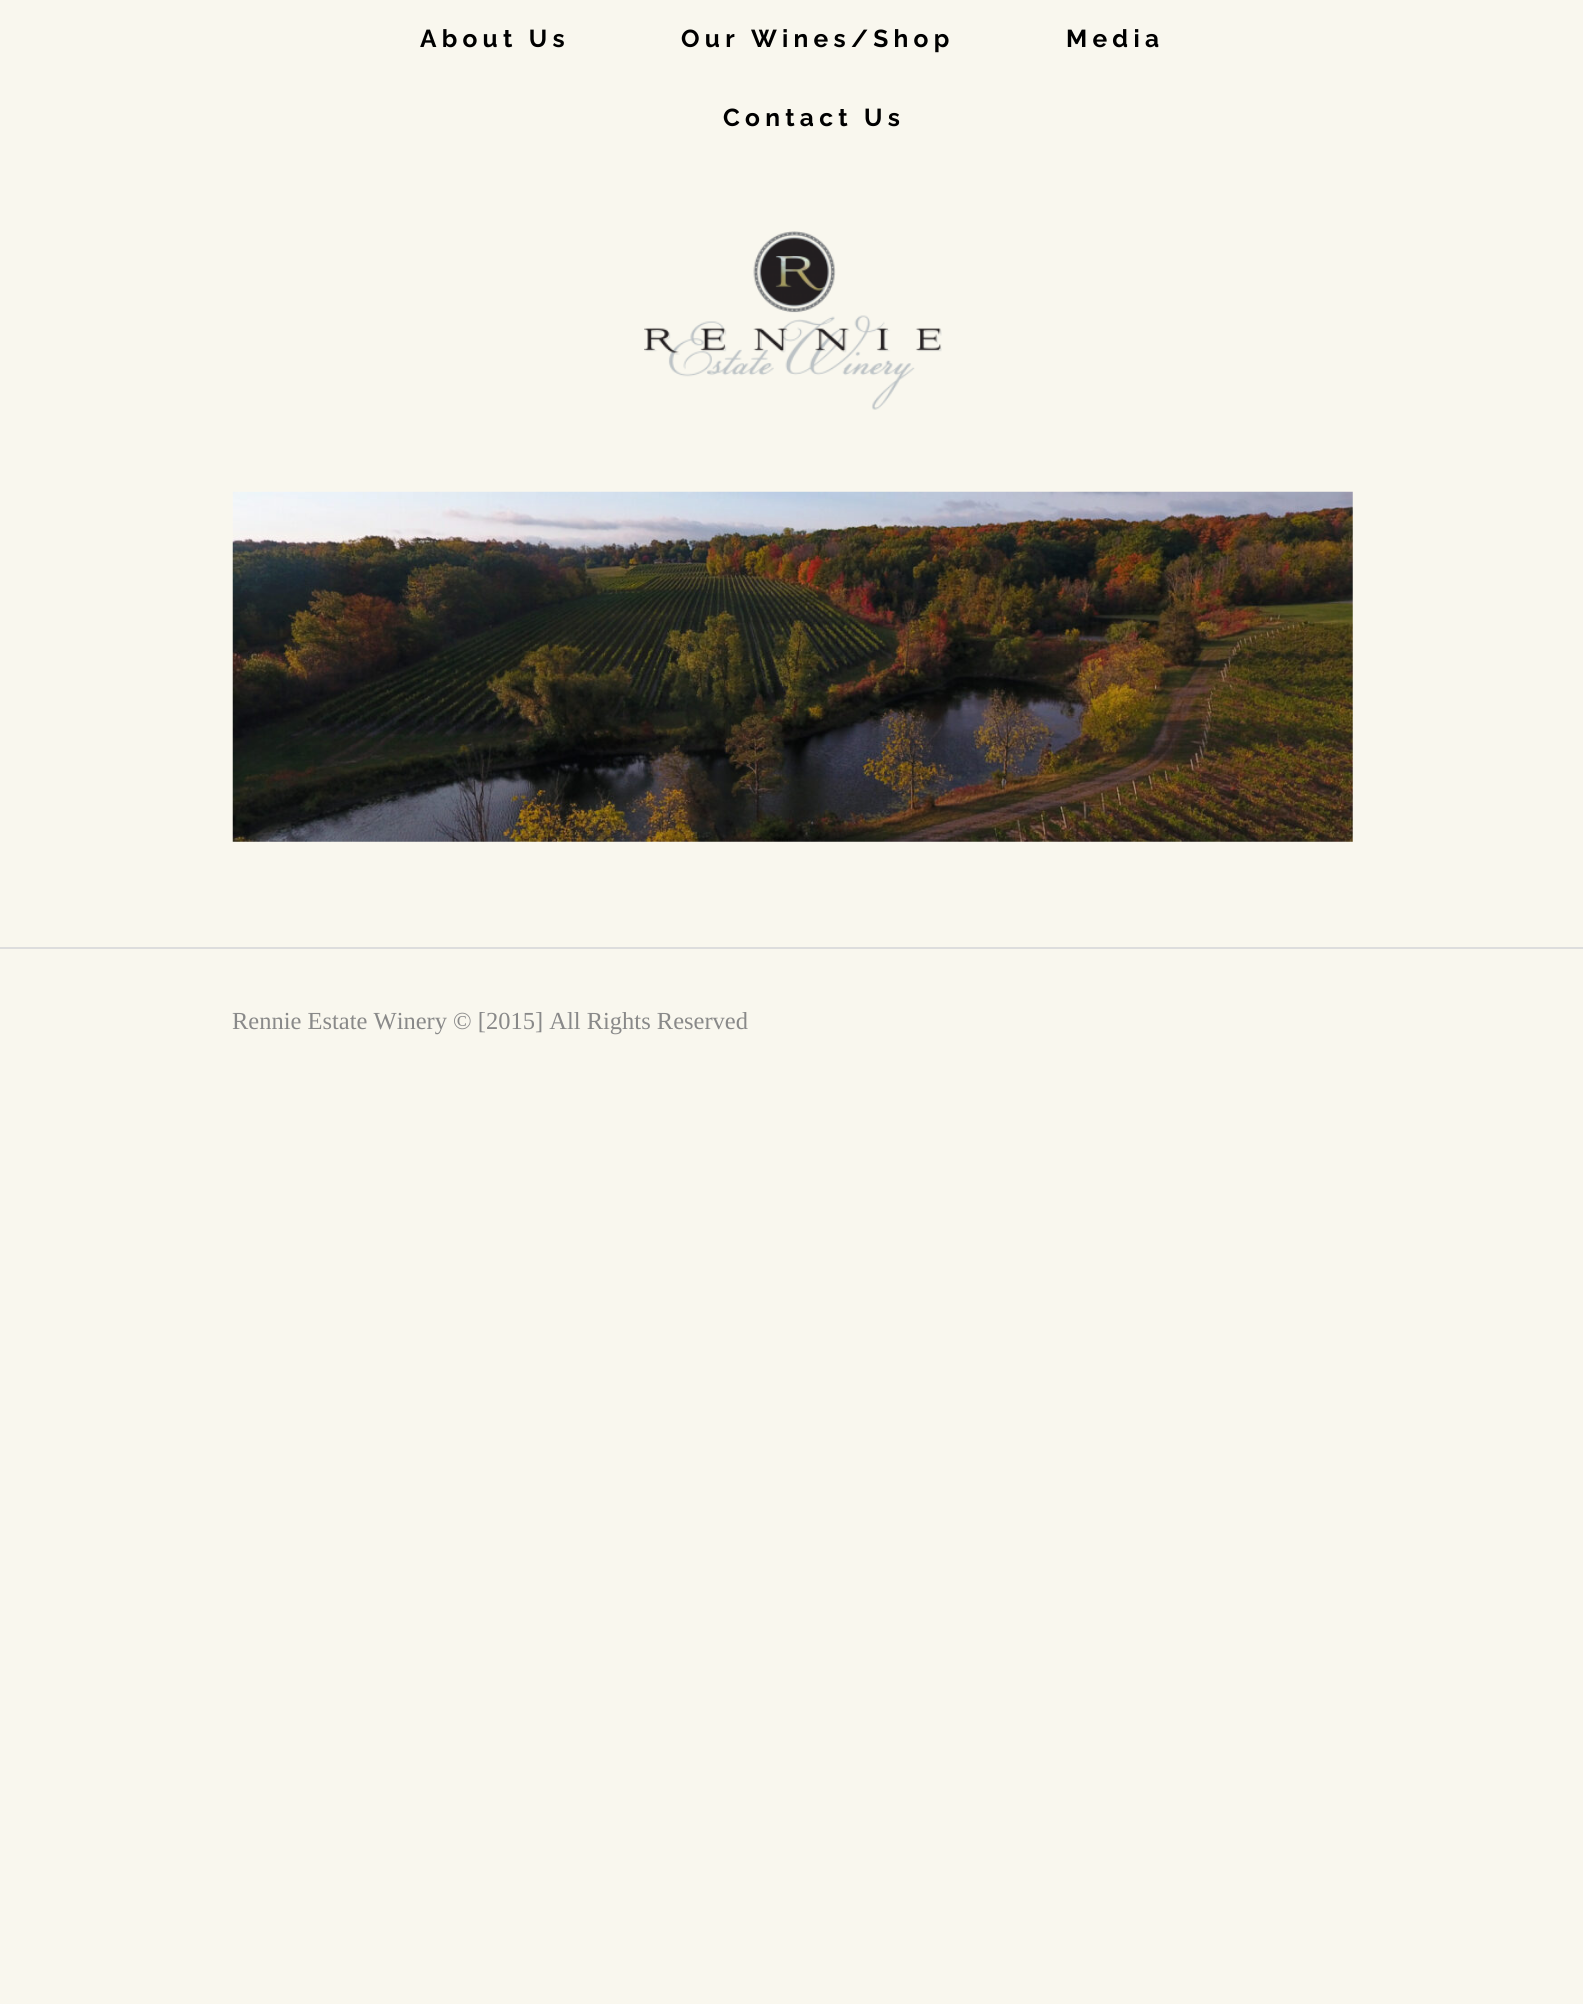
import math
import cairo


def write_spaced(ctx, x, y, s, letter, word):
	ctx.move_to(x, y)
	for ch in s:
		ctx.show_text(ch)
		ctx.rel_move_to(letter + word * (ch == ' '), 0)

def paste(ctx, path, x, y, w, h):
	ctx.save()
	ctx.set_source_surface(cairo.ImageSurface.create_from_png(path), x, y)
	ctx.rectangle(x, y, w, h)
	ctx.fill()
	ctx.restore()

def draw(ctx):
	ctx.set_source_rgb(0.973, 0.965, 0.933)
	ctx.paint()
	ctx.select_font_face('Raleway', cairo.FONT_SLANT_NORMAL, cairo.FONT_WEIGHT_BOLD)
	ctx.set_font_size(24.5)
	ctx.set_source_rgb(0, 0, 0)
	for x, y, s in [
		(420, 47, 'About Us'),
		(681, 47, 'Our Wines/Shop'),
		(1066, 47, 'Media'),
		(723, 126, 'Contact Us'),
	]:
		write_spaced(ctx, x, y, s, 5.25, 0)
	paste(ctx, 'media/1.png', 644, 231, 298, 179)
	paste(ctx, 'media/2.png', 232, 491, 1121, 351)
	ctx.set_source_rgb(0.867, 0.867, 0.867)
	ctx.rectangle(0, 947, 1583, 2)
	ctx.fill()
	ctx.select_font_face('Liberation Serif')
	ctx.set_source_rgb(0.537, 0.537, 0.537)
	ctx.move_to(232, 1029)
	ctx.show_text('Rennie Estate Winery © [2015] All Rights Reserved')


surface = cairo.ImageSurface(cairo.FORMAT_RGB24, 1583, 2004)
ctx = cairo.Context(surface)
options = cairo.FontOptions()
options.set_hint_metrics(cairo.HINT_METRICS_OFF)
options.set_hint_style(cairo.HINT_STYLE_NONE)
ctx.set_font_options(options)
ctx.set_miter_limit(4)
draw(ctx)
surface.write_to_png('image.png')
